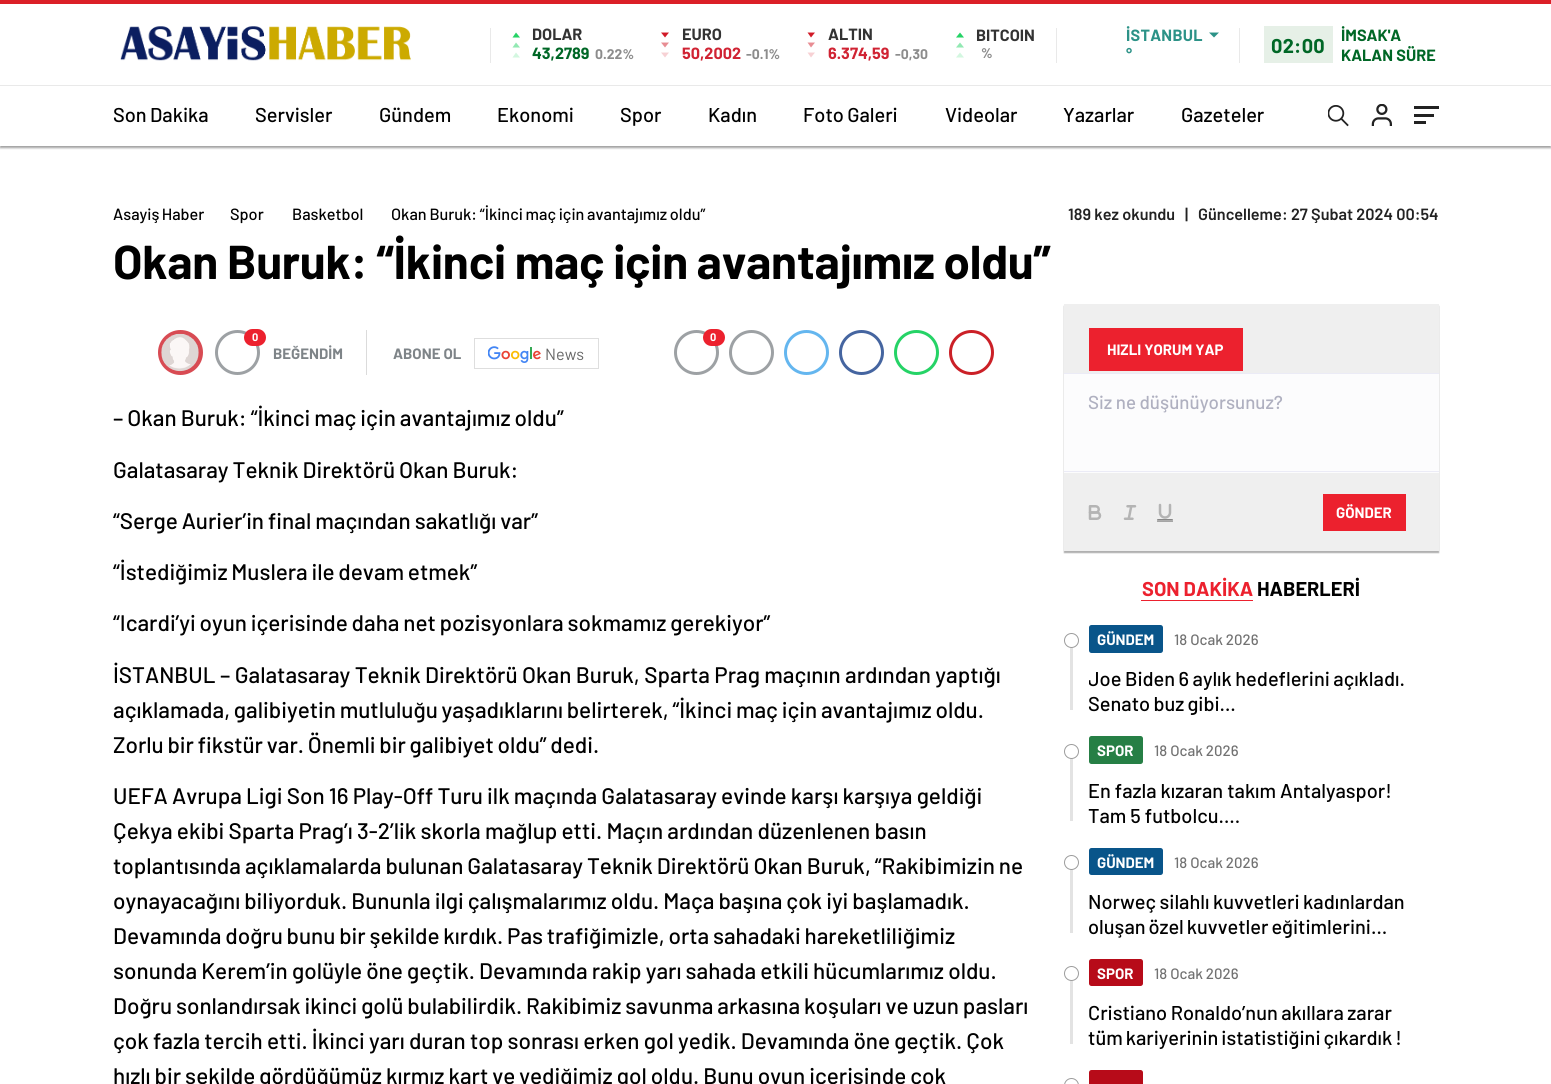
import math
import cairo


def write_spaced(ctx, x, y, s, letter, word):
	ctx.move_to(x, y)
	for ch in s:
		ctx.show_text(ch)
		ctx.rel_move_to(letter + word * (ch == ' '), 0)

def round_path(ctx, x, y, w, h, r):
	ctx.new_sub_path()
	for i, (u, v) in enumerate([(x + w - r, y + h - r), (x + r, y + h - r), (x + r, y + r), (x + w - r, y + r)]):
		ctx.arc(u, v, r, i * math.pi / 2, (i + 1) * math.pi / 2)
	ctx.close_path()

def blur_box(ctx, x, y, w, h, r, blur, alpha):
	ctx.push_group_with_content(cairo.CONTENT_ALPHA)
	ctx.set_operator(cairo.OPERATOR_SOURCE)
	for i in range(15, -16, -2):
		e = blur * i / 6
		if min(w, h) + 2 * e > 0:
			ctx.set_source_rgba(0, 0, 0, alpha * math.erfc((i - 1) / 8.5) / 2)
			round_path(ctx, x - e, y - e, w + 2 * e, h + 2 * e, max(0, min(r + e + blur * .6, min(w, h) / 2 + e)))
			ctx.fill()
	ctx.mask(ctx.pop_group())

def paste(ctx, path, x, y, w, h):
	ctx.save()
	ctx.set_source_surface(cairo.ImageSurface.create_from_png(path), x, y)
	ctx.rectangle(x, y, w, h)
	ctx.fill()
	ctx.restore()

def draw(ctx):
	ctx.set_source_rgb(1, 1, 1)
	ctx.paint()
	ctx.save()
	ctx.rectangle(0, 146, 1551, 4)
	ctx.clip()
	ctx.set_source_rgb(0, 0, 0)
	blur_box(ctx, 0, 1, 1551, 147, 0, 1, 0.37)
	ctx.restore()
	ctx.set_source_rgb(0.859, 0.125, 0.153)
	ctx.rectangle(0, 0, 1551, 4)
	ctx.fill()
	paste(ctx, 'media/1.png', 120, 26, 291, 35)
	ctx.set_source_rgb(0.914, 0.914, 0.914)
	ctx.rectangle(490, 28, 1, 35)
	ctx.fill()
	ctx.set_source_rgb(0.145, 0.827, 0.4)
	ctx.new_path()
	ctx.move_to(520, 37.5)
	ctx.line_to(512.5, 37.5)
	ctx.line_to(516, 32.5)
	ctx.close_path()
	ctx.fill()
	ctx.set_source_rgb(0.573, 0.914, 0.702)
	ctx.new_path()
	ctx.move_to(520, 47.5)
	ctx.line_to(512.5, 47.5)
	ctx.line_to(516, 42.5)
	ctx.close_path()
	ctx.fill()
	ctx.set_source_rgb(0.827, 0.965, 0.878)
	ctx.new_path()
	ctx.move_to(520, 57.5)
	ctx.line_to(512.5, 57.5)
	ctx.line_to(516, 52.5)
	ctx.close_path()
	ctx.fill()
	ctx.select_font_face('Barlow', cairo.FONT_SLANT_NORMAL, cairo.FONT_WEIGHT_BOLD)
	ctx.set_font_size(16.25)
	ctx.set_source_rgb(0.2, 0.2, 0.2)
	ctx.move_to(532, 40)
	ctx.show_text('DOLAR')
	ctx.set_source_rgb(0, 0.404, 0.149)
	ctx.move_to(532, 59)
	ctx.show_text('43,2789')
	ctx.set_font_size(14)
	ctx.set_source_rgb(0.549, 0.549, 0.549)
	ctx.move_to(595, 59)
	ctx.show_text('0.22%')
	ctx.set_source_rgb(0.82, 0.102, 0.153)
	ctx.new_path()
	ctx.move_to(661, 32.5)
	ctx.line_to(669, 32.5)
	ctx.line_to(665, 37.5)
	ctx.close_path()
	ctx.fill()
	ctx.set_source_rgb(0.91, 0.553, 0.576)
	ctx.new_path()
	ctx.move_to(661, 42.5)
	ctx.line_to(669, 42.5)
	ctx.line_to(665, 47.5)
	ctx.close_path()
	ctx.fill()
	ctx.set_source_rgb(0.965, 0.82, 0.831)
	ctx.new_path()
	ctx.move_to(661, 52.5)
	ctx.line_to(669, 52.5)
	ctx.line_to(665, 57.5)
	ctx.close_path()
	ctx.fill()
	ctx.set_font_size(16.25)
	ctx.set_source_rgb(0.2, 0.2, 0.2)
	ctx.move_to(682, 40)
	ctx.show_text('EURO')
	ctx.set_source_rgb(0.816, 0.137, 0.2)
	ctx.move_to(682, 59)
	ctx.show_text('50,2002')
	ctx.set_font_size(14)
	ctx.set_source_rgb(0.549, 0.549, 0.549)
	ctx.move_to(746, 59)
	ctx.show_text('-0.1%')
	ctx.set_source_rgb(0.82, 0.102, 0.153)
	ctx.new_path()
	ctx.move_to(807.5, 32.5)
	ctx.line_to(815, 32.5)
	ctx.line_to(811, 37.5)
	ctx.close_path()
	ctx.fill()
	ctx.set_source_rgb(0.91, 0.553, 0.576)
	ctx.new_path()
	ctx.move_to(807.5, 42.5)
	ctx.line_to(815, 42.5)
	ctx.line_to(811, 47.5)
	ctx.close_path()
	ctx.fill()
	ctx.set_source_rgb(0.965, 0.82, 0.831)
	ctx.new_path()
	ctx.move_to(807.5, 52.5)
	ctx.line_to(815, 52.5)
	ctx.line_to(811, 57.5)
	ctx.close_path()
	ctx.fill()
	ctx.set_font_size(16.25)
	ctx.set_source_rgb(0.2, 0.2, 0.2)
	ctx.move_to(828, 40)
	ctx.show_text('ALTIN')
	ctx.set_source_rgb(0.816, 0.137, 0.2)
	ctx.move_to(828, 59)
	ctx.show_text('6.374,59')
	ctx.set_font_size(14)
	ctx.set_source_rgb(0.549, 0.549, 0.549)
	ctx.move_to(895, 59)
	ctx.show_text('-0,30')
	ctx.set_source_rgb(0.145, 0.827, 0.4)
	ctx.new_path()
	ctx.move_to(964, 37.5)
	ctx.line_to(956, 37.5)
	ctx.line_to(960, 32.5)
	ctx.close_path()
	ctx.fill()
	ctx.set_source_rgb(0.573, 0.914, 0.702)
	ctx.new_path()
	ctx.move_to(964, 47.5)
	ctx.line_to(956, 47.5)
	ctx.line_to(960, 42.5)
	ctx.close_path()
	ctx.fill()
	ctx.set_source_rgb(0.827, 0.965, 0.878)
	ctx.new_path()
	ctx.move_to(964, 57.5)
	ctx.line_to(956, 57.5)
	ctx.line_to(960, 52.5)
	ctx.close_path()
	ctx.fill()
	ctx.set_font_size(16.25)
	ctx.set_source_rgb(0.2, 0.2, 0.2)
	ctx.move_to(976, 41)
	ctx.show_text('BITCOIN')
	ctx.set_font_size(14)
	ctx.set_source_rgb(0.549, 0.549, 0.549)
	ctx.move_to(981, 58)
	ctx.show_text('%')
	ctx.set_source_rgb(0.914, 0.914, 0.914)
	ctx.rectangle(1056, 28, 1, 35)
	ctx.fill()
	ctx.set_font_size(16.25)
	ctx.set_source_rgb(0.173, 0.573, 0.529)
	write_spaced(ctx, 1126, 41, 'İSTANBUL', 0.25, 0)
	ctx.new_path()
	ctx.move_to(1209, 32.5)
	ctx.line_to(1219, 32.5)
	ctx.line_to(1214, 37.5)
	ctx.close_path()
	ctx.fill()
	write_spaced(ctx, 1126, 61, '°', 0.25, 0)
	ctx.set_source_rgb(0.914, 0.914, 0.914)
	ctx.rectangle(1239, 28, 1, 35)
	ctx.fill()
	ctx.set_source_rgb(0.902, 0.941, 0.906)
	ctx.rectangle(1264, 26, 69, 37)
	ctx.fill()
	ctx.set_font_size(20)
	ctx.set_source_rgb(0, 0.404, 0.149)
	write_spaced(ctx, 1271, 53, '02:00', 0.25, 0)
	ctx.set_font_size(16.25)
	ctx.move_to(1341, 41)
	ctx.show_text('İMSAK\'A')
	ctx.move_to(1341, 61)
	ctx.show_text('KALAN SÜRE')
	ctx.set_source_rgb(0.914, 0.914, 0.914)
	ctx.rectangle(0, 85, 1551, 1)
	ctx.fill()
	ctx.select_font_face('Barlow Medium')
	ctx.set_font_size(20)
	ctx.set_source_rgb(0, 0, 0)
	write_spaced(ctx, 113, 122, 'Son Dakika', 0, -0.75)
	for x, y, s in [
		(255, 122, 'Servisler'),
		(379, 122, 'Gündem'),
		(497, 122, 'Ekonomi'),
		(620, 122, 'Spor'),
		(708, 122, 'Kadın'),
	]:
		ctx.move_to(x, y)
		ctx.show_text(s)
	write_spaced(ctx, 803, 122, 'Foto Galeri', 0, -0.75)
	for x, y, s in [
		(945, 122, 'Videolar'),
		(1063, 122, 'Yazarlar'),
		(1181, 122, 'Gazeteler'),
	]:
		ctx.move_to(x, y)
		ctx.show_text(s)
	paste(ctx, 'media/2.png', 1328, 105, 21, 22)
	paste(ctx, 'media/3.png', 1371, 104, 21, 22)
	ctx.set_source_rgb(0.133, 0.133, 0.133)
	ctx.rectangle(1414, 106, 25, 3)
	ctx.rectangle(1414, 114, 20, 3)
	ctx.rectangle(1414, 121, 12, 3)
	ctx.fill()
	ctx.set_font_size(16.25)
	ctx.set_source_rgb(0, 0, 0)
	write_spaced(ctx, 113, 220, 'Asayiş Haber', 0, -1)
	ctx.move_to(230, 220)
	ctx.show_text('Spor')
	ctx.move_to(292, 220)
	ctx.show_text('Basketbol')
	write_spaced(ctx, 391, 220, 'Okan Buruk: “İkinci maç için avantajımız oldu”', 0, -0.5)
	ctx.select_font_face('Barlow SemiBold')
	ctx.set_source_rgb(0.133, 0.133, 0.133)
	for x, y, s in [
		(1068, 220, '189 kez okundu'),
		(1185, 220, '|'),
		(1198, 220, 'Güncelleme: 27 Şubat 2024 00:54'),
	]:
		ctx.move_to(x, y)
		ctx.show_text(s)
	ctx.select_font_face('Barlow', cairo.FONT_SLANT_NORMAL, cairo.FONT_WEIGHT_BOLD)
	ctx.set_font_size(47.5)
	ctx.set_source_rgb(0, 0, 0)
	write_spaced(ctx, 113, 279, 'Okan Buruk: “İkinci maç için avantajımız oldu”', -0.2, -0.5)
	ctx.set_source_rgb(0.847, 0.294, 0.325)
	ctx.new_path()
	ctx.arc(180.5, 352.5, 22.5, 0, 2 * math.pi)
	ctx.fill()
	paste(ctx, 'media/4.png', 161, 333, 38, 39)
	ctx.arc(237.5, 352.5, 21, 0, 2 * math.pi)
	ctx.set_source_rgb(0.616, 0.631, 0.643)
	ctx.set_line_width(3)
	ctx.stroke()
	ctx.set_source_rgb(0.922, 0.129, 0.18)
	round_path(ctx, 244, 329, 22, 17, 8.5)
	ctx.fill()
	ctx.set_font_size(11)
	ctx.set_source_rgb(1, 1, 1)
	ctx.move_to(252, 341)
	ctx.show_text('0')
	ctx.set_source_rgb(0.859, 0.859, 0.859)
	ctx.rectangle(366, 330, 1, 45)
	ctx.fill()
	ctx.set_font_size(15)
	ctx.set_source_rgb(0.494, 0.518, 0.533)
	ctx.move_to(273, 359)
	ctx.show_text('BEĞENDİM')
	ctx.move_to(393, 359)
	ctx.show_text('ABONE OL')
	ctx.rectangle(474.5, 338.5, 124, 30)
	ctx.set_source_rgb(0.871, 0.871, 0.871)
	ctx.set_line_width(1)
	ctx.stroke()
	paste(ctx, 'media/5.png', 488, 346, 53, 17)
	ctx.select_font_face('Barlow')
	ctx.set_font_size(16.25)
	ctx.set_source_rgb(0.4, 0.4, 0.4)
	ctx.move_to(545, 360)
	ctx.show_text('News')
	ctx.new_path()
	ctx.arc(696.5, 352.5, 21, 0, 2 * math.pi)
	ctx.set_source_rgb(0.616, 0.631, 0.643)
	ctx.set_line_width(3)
	ctx.stroke()
	ctx.set_source_rgb(0.922, 0.129, 0.18)
	round_path(ctx, 703, 329, 22, 17, 8.5)
	ctx.fill()
	ctx.select_font_face('Barlow', cairo.FONT_SLANT_NORMAL, cairo.FONT_WEIGHT_BOLD)
	ctx.set_font_size(11)
	ctx.set_source_rgb(1, 1, 1)
	ctx.move_to(710, 341)
	ctx.show_text('0')
	ctx.new_path()
	ctx.arc(751.5, 352.5, 21, 0, 2 * math.pi)
	ctx.set_source_rgb(0.616, 0.631, 0.643)
	ctx.stroke()
	ctx.arc(806.5, 352.5, 21, 0, 2 * math.pi)
	ctx.set_source_rgb(0.392, 0.714, 0.937)
	ctx.stroke()
	ctx.arc(861.5, 352.5, 21, 0, 2 * math.pi)
	ctx.set_source_rgb(0.271, 0.396, 0.627)
	ctx.stroke()
	ctx.arc(916.5, 352.5, 21, 0, 2 * math.pi)
	ctx.set_source_rgb(0.145, 0.827, 0.4)
	ctx.stroke()
	ctx.arc(971.5, 352.5, 21, 0, 2 * math.pi)
	ctx.set_source_rgb(0.796, 0.125, 0.153)
	ctx.stroke()
	ctx.select_font_face('Barlow Medium')
	ctx.set_font_size(22.5)
	ctx.set_source_rgb(0, 0, 0)
	for x, y, s in [
		(113, 426, '– Okan Buruk: “İkinci maç için avantajımız oldu”'),
		(113, 478, 'Galatasaray Teknik Direktörü Okan Buruk:'),
		(113, 529, '“Serge Aurier’in final maçından sakatlığı var”'),
	]:
		write_spaced(ctx, x, y, s, 0, -0.5)
	write_spaced(ctx, 113, 580, '“İstediğimiz Muslera ile devam etmek”', 0, -0.75)
	write_spaced(ctx, 113, 631, '“Icardi’yi oyun içerisinde daha net pozisyonlara sokmamız gerekiyor”', 0, -0.75)
	write_spaced(ctx, 113, 683, 'İSTANBUL – Galatasaray Teknik Direktörü Okan Buruk, Sparta Prag maçının ardından yaptığı', 0, -0.1)
	write_spaced(ctx, 113, 718, 'açıklamada, galibiyetin mutluluğu yaşadıklarını belirterek, “İkinci maç için avantajımız oldu.', 0, -0.75)
	write_spaced(ctx, 113, 753, 'Zorlu bir fikstür var. Önemli bir galibiyet oldu” dedi.', 0, -0.75)
	write_spaced(ctx, 113, 804, 'UEFA Avrupa Ligi Son 16 Play-Off Turu ilk maçında Galatasaray evinde karşı karşıya geldiği', 0, -0.3)
	write_spaced(ctx, 113, 839, 'Çekya ekibi Sparta Prag’ı 3-2’lik skorla mağlup etti. Maçın ardından düzenlenen basın', 0, -0.25)
	write_spaced(ctx, 113, 874, 'toplantısında açıklamalarda bulunan Galatasaray Teknik Direktörü Okan Buruk, “Rakibimizin ne', 0, -0.5)
	write_spaced(ctx, 113, 909, 'oynayacağını biliyorduk. Bununla ilgi çalışmalarımız oldu. Maça başına çok iyi başlamadık.', 0, -0.5)
	write_spaced(ctx, 113, 944, 'Devamında doğru bunu bir şekilde kırdık. Pas trafiğimizle, orta sahadaki hareketliliğimiz', 0, -0.75)
	write_spaced(ctx, 113, 979, 'sonunda Kerem’in golüyle öne geçtik. Devamında rakip yarı sahada etkili hücumlarımız oldu.', 0, -0.3)
	write_spaced(ctx, 113, 1014, 'Doğru sonlandırsak ikinci golü bulabilirdik. Rakibimiz savunma arkasına koşuları ve uzun pasları', 0, -0.6)
	write_spaced(ctx, 113, 1049, 'çok fazla tercih etti. İkinci yarı duran top sonrası erken gol yedik. Devamında öne geçtik. Çok', 0, -0.25)
	write_spaced(ctx, 113, 1084, 'hızlı bir şekilde gördüğümüz kırmız kart ve yediğimiz gol oldu. Bunu oyun içerisinde çok', 0, -0.5)
	ctx.set_source_rgb(0.69, 0.69, 0.69)
	blur_box(ctx, 1064, 306, 375, 247, 0, 0.5, 1)
	ctx.set_source_rgb(0.937, 0.937, 0.937)
	ctx.rectangle(1064, 304, 375, 69)
	ctx.fill()
	ctx.set_source_rgb(0.922, 0.129, 0.18)
	ctx.rectangle(1089, 328, 154, 43)
	ctx.fill()
	ctx.select_font_face('Barlow', cairo.FONT_SLANT_NORMAL, cairo.FONT_WEIGHT_BOLD)
	ctx.set_font_size(15)
	ctx.set_source_rgb(1, 1, 1)
	ctx.move_to(1107, 355)
	ctx.show_text('HIZLI YORUM YAP')
	ctx.set_source_rgb(0.988, 0.988, 0.992)
	ctx.rectangle(1064, 374, 375, 99)
	ctx.fill()
	ctx.set_source_rgb(0.918, 0.918, 0.961)
	ctx.rectangle(1064, 373, 375, 1)
	ctx.rectangle(1064, 471, 375, 1)
	ctx.fill()
	ctx.select_font_face('Barlow Medium')
	ctx.set_font_size(18.75)
	ctx.set_source_rgb(0.686, 0.69, 0.753)
	write_spaced(ctx, 1088, 409, 'Siz ne düşünüyorsunuz?', 0, -0.25)
	ctx.set_source_rgb(0.937, 0.937, 0.937)
	ctx.rectangle(1064, 473, 375, 78)
	ctx.fill()
	paste(ctx, 'media/6.png', 1088, 505, 14, 15)
	paste(ctx, 'media/7.png', 1123, 505, 14, 15)
	paste(ctx, 'media/8.png', 1157, 503, 16, 19)
	ctx.set_source_rgb(0.922, 0.129, 0.18)
	ctx.rectangle(1323, 494, 83, 37)
	ctx.fill()
	ctx.select_font_face('Barlow', cairo.FONT_SLANT_NORMAL, cairo.FONT_WEIGHT_BOLD)
	ctx.set_font_size(15)
	ctx.set_source_rgb(1, 1, 1)
	ctx.move_to(1336, 518)
	ctx.show_text('GÖNDER')
	ctx.set_font_size(20)
	ctx.set_source_rgb(0.922, 0.129, 0.18)
	ctx.move_to(1142, 596)
	ctx.show_text('SON DAKİKA')
	ctx.rectangle(1141, 600, 112, 1)
	ctx.fill()
	ctx.set_source_rgb(0, 0, 0)
	ctx.move_to(1257, 596)
	ctx.show_text('HABERLERİ')
	ctx.new_path()
	ctx.arc(1071.5, 640.5, 7, 0, 2 * math.pi)
	ctx.set_source_rgb(0.612, 0.612, 0.612)
	ctx.set_line_width(1)
	ctx.stroke()
	ctx.set_source_rgb(0.039, 0.333, 0.541)
	round_path(ctx, 1089, 625, 74, 28, 2.5)
	ctx.fill()
	ctx.set_font_size(15)
	ctx.set_source_rgb(1, 1, 1)
	ctx.move_to(1097, 645)
	ctx.show_text('GÜNDEM')
	ctx.select_font_face('Barlow Medium')
	ctx.set_source_rgb(0.447, 0.447, 0.447)
	ctx.move_to(1174, 645)
	ctx.show_text('18 Ocak 2026')
	ctx.set_source_rgb(0.89, 0.89, 0.89)
	ctx.rectangle(1070, 648, 3, 62)
	ctx.fill()
	ctx.save()
	ctx.rectangle(1089, 666, 350, 50)
	ctx.clip()
	ctx.set_font_size(20)
	ctx.set_source_rgb(0, 0, 0)
	write_spaced(ctx, 1088, 686, 'Joe Biden 6 aylık hedeflerini açıkladı.', 0, -0.5)
	ctx.restore()
	ctx.set_font_size(20)
	ctx.set_source_rgb(0, 0, 0)
	write_spaced(ctx, 1088, 711, 'Senato buz gibi…', 0, -0.75)
	ctx.new_path()
	ctx.arc(1071.5, 751.5, 7, 0, 2 * math.pi)
	ctx.set_source_rgb(0.612, 0.612, 0.612)
	ctx.stroke()
	ctx.set_source_rgb(0.149, 0.498, 0.271)
	round_path(ctx, 1089, 736, 54, 28, 2.5)
	ctx.fill()
	ctx.select_font_face('Barlow', cairo.FONT_SLANT_NORMAL, cairo.FONT_WEIGHT_BOLD)
	ctx.set_font_size(15)
	ctx.set_source_rgb(1, 1, 1)
	ctx.move_to(1097, 756)
	ctx.show_text('SPOR')
	ctx.select_font_face('Barlow Medium')
	ctx.set_source_rgb(0.447, 0.447, 0.447)
	ctx.move_to(1154, 756)
	ctx.show_text('18 Ocak 2026')
	ctx.set_source_rgb(0.89, 0.89, 0.89)
	ctx.rectangle(1070, 759, 3, 62)
	ctx.fill()
	ctx.set_font_size(20)
	ctx.set_source_rgb(0, 0, 0)
	ctx.move_to(1088, 798)
	ctx.show_text('En fazla kızaran takım Antalyaspor!')
	ctx.move_to(1088, 823)
	ctx.show_text('Tam 5 futbolcu….')
	ctx.new_path()
	ctx.arc(1071.5, 862.5, 7, 0, 2 * math.pi)
	ctx.set_source_rgb(0.612, 0.612, 0.612)
	ctx.stroke()
	ctx.set_source_rgb(0.039, 0.333, 0.541)
	round_path(ctx, 1089, 848, 74, 27, 2.5)
	ctx.fill()
	ctx.select_font_face('Barlow', cairo.FONT_SLANT_NORMAL, cairo.FONT_WEIGHT_BOLD)
	ctx.set_font_size(15)
	ctx.set_source_rgb(1, 1, 1)
	ctx.move_to(1097, 868)
	ctx.show_text('GÜNDEM')
	ctx.select_font_face('Barlow Medium')
	ctx.set_source_rgb(0.447, 0.447, 0.447)
	ctx.move_to(1174, 868)
	ctx.show_text('18 Ocak 2026')
	ctx.set_source_rgb(0.89, 0.89, 0.89)
	ctx.rectangle(1070, 870, 3, 63)
	ctx.fill()
	ctx.set_font_size(20)
	ctx.set_source_rgb(0, 0, 0)
	write_spaced(ctx, 1088, 909, 'Norweç silahlı kuvvetleri kadınlardan', 0, -0.5)
	write_spaced(ctx, 1088, 934, 'oluşan özel kuvvetler eğitimlerini…', 0, -1)
	ctx.new_path()
	ctx.arc(1071.5, 973.5, 7, 0, 2 * math.pi)
	ctx.set_source_rgb(0.612, 0.612, 0.612)
	ctx.stroke()
	ctx.set_source_rgb(0.718, 0.043, 0.098)
	round_path(ctx, 1089, 959, 54, 27, 2.5)
	ctx.fill()
	ctx.select_font_face('Barlow', cairo.FONT_SLANT_NORMAL, cairo.FONT_WEIGHT_BOLD)
	ctx.set_font_size(15)
	ctx.set_source_rgb(1, 1, 1)
	ctx.move_to(1097, 979)
	ctx.show_text('SPOR')
	ctx.select_font_face('Barlow Medium')
	ctx.set_source_rgb(0.447, 0.447, 0.447)
	ctx.move_to(1154, 979)
	ctx.show_text('18 Ocak 2026')
	ctx.set_source_rgb(0.89, 0.89, 0.89)
	ctx.rectangle(1070, 981, 3, 63)
	ctx.fill()
	ctx.set_font_size(20)
	ctx.set_source_rgb(0, 0, 0)
	write_spaced(ctx, 1088, 1020, 'Cristiano Ronaldo’nun akıllara zarar', 0, -0.5)
	write_spaced(ctx, 1088, 1045, 'tüm kariyerinin istatistiğini çıkardık !', 0, -1)
	ctx.new_path()
	ctx.arc(1071.5, 1085.5, 7, 0, 2 * math.pi)
	ctx.set_source_rgb(0.612, 0.612, 0.612)
	ctx.stroke()
	ctx.set_source_rgb(0.718, 0.043, 0.098)
	round_path(ctx, 1089, 1070, 54, 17, 2.5)
	ctx.fill()


surface = cairo.ImageSurface(cairo.FORMAT_RGB24, 1551, 1084)
ctx = cairo.Context(surface)
options = cairo.FontOptions()
options.set_hint_metrics(cairo.HINT_METRICS_OFF)
options.set_hint_style(cairo.HINT_STYLE_NONE)
ctx.set_font_options(options)
ctx.set_miter_limit(4)
draw(ctx)
surface.write_to_png('image.png')
